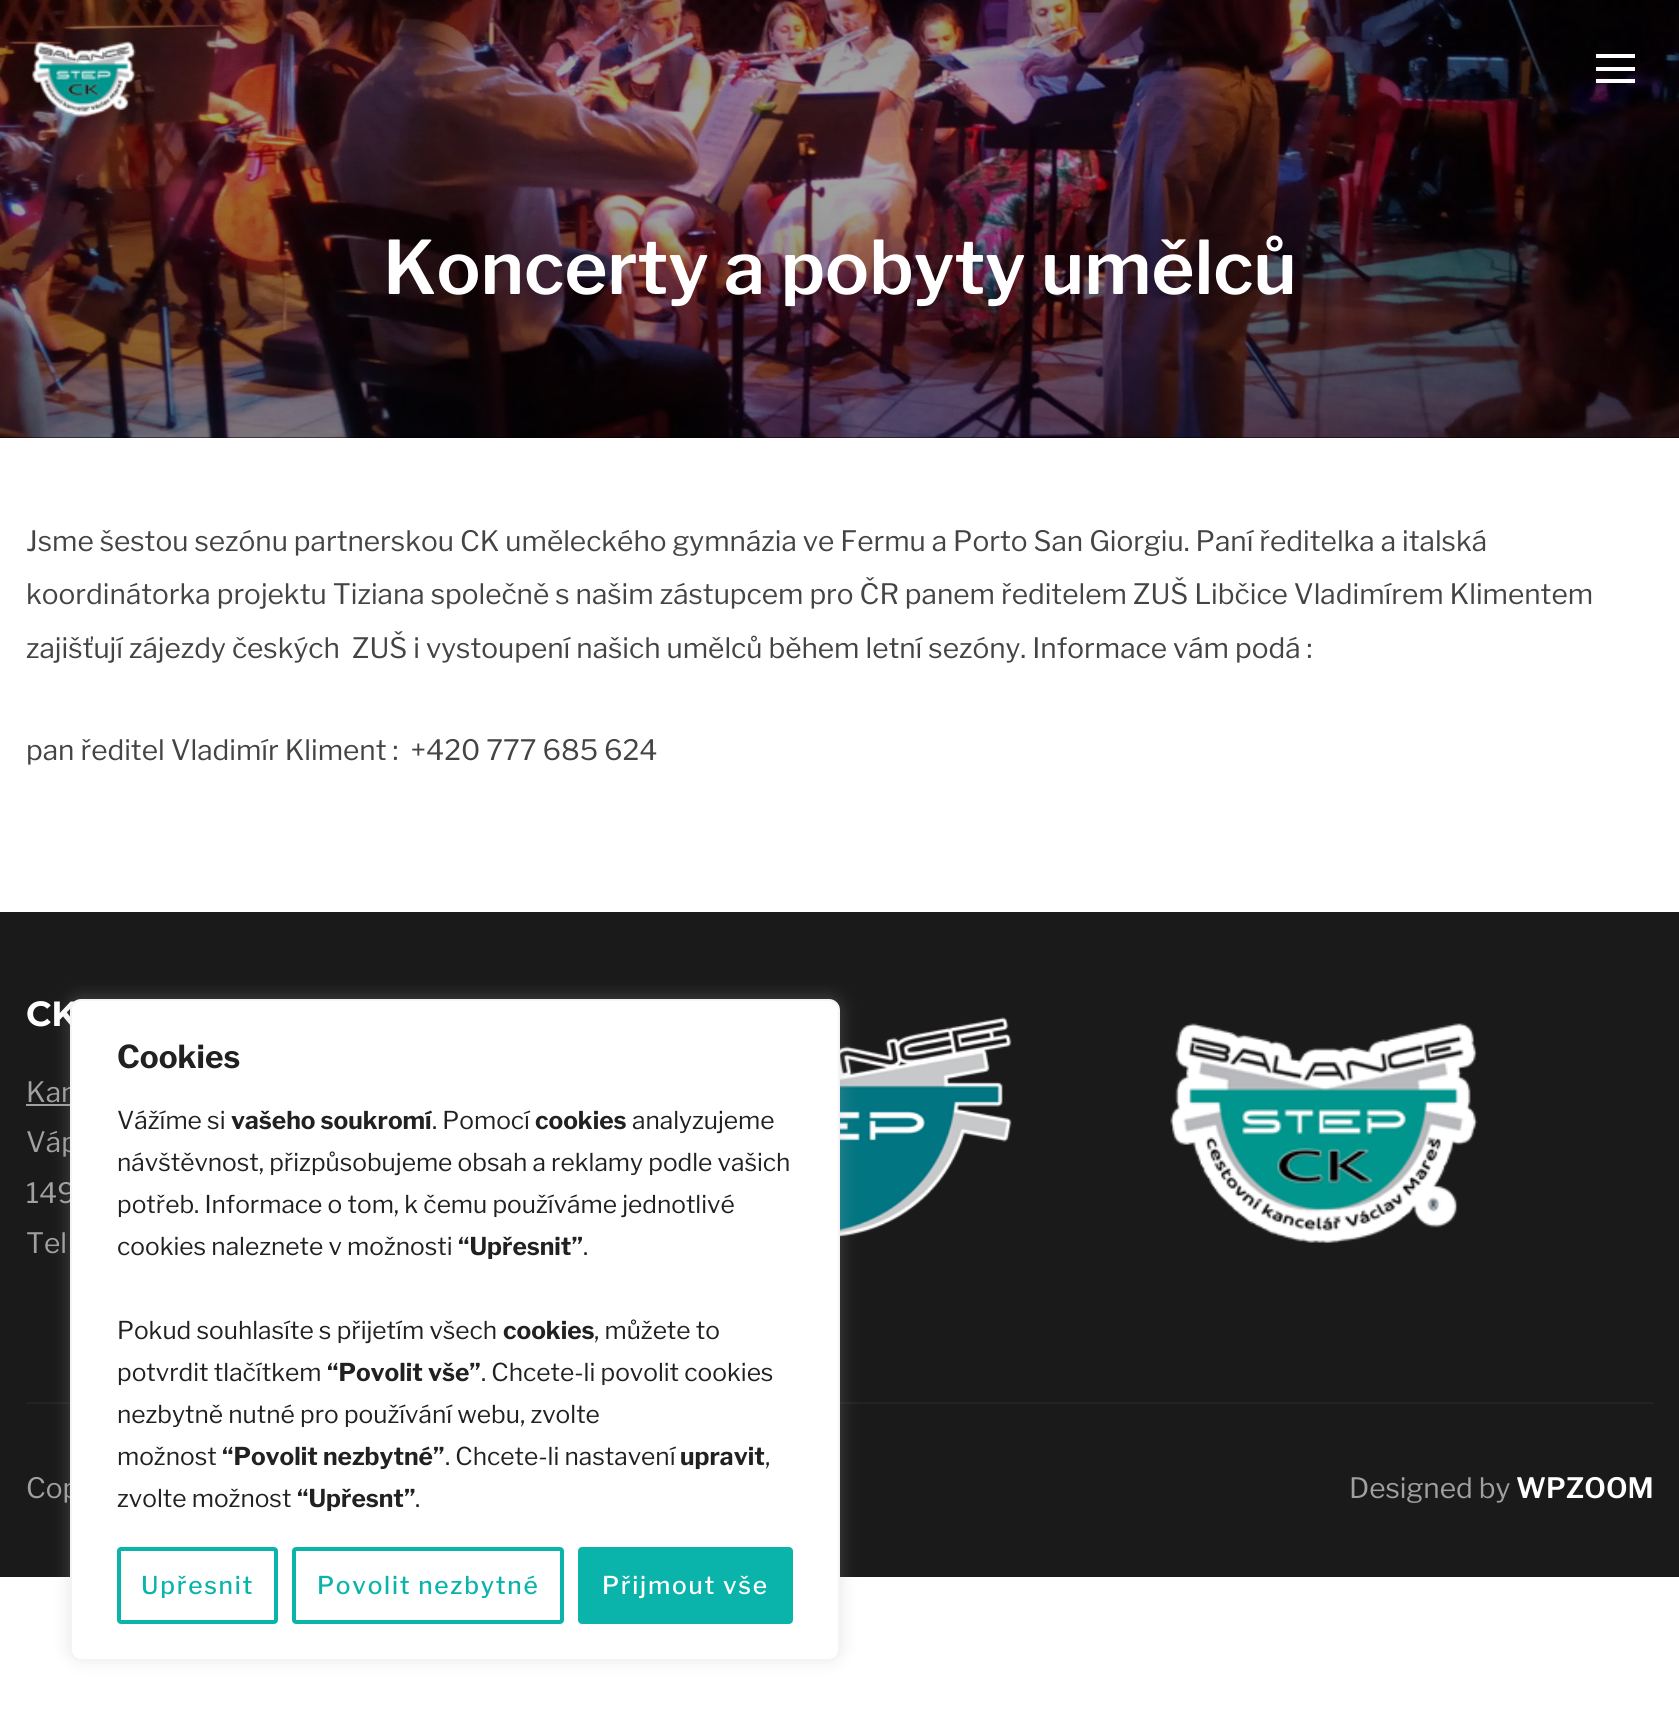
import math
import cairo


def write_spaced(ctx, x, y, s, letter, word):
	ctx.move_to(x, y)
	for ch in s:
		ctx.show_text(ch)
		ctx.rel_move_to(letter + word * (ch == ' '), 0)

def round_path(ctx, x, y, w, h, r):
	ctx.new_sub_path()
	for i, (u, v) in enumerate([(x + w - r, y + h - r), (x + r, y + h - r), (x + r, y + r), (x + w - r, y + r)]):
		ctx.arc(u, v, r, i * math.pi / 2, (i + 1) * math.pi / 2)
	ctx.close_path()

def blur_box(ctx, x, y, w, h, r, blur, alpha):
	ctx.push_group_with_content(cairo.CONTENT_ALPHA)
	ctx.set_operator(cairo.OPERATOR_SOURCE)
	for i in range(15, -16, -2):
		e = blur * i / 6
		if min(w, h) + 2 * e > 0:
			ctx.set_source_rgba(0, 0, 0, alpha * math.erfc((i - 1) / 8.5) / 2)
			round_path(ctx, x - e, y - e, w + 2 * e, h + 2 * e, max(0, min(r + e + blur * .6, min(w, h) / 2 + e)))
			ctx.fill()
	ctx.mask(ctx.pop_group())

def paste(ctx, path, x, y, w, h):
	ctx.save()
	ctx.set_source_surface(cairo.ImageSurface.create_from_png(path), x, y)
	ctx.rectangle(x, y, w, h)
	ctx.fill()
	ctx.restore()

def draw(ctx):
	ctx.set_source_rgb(1, 1, 1)
	ctx.paint()
	ctx.set_source_rgb(0, 0, 0)
	ctx.rectangle(0, 0, 1679, 438)
	ctx.fill()
	paste(ctx, 'media/2.png', 0, 0, 1679, 438)
	gradient = cairo.LinearGradient(840, 0, 840, 438)
	gradient.add_color_stop_rgba(0, 0, 0, 0, 0.08)
	gradient.add_color_stop_rgba(1, 0, 0, 0, 0.4)
	ctx.set_source(gradient)
	ctx.rectangle(0, 0, 1679, 438)
	ctx.fill()
	gradient = cairo.LinearGradient(840, 0, 840, 154)
	gradient.add_color_stop_rgba(0.01, 0, 0, 0, 0.2)
	gradient.add_color_stop_rgba(1, 0, 0, 0, 0)
	ctx.set_source(gradient)
	ctx.rectangle(0, 0, 1679, 138)
	ctx.fill()
	paste(ctx, 'media/1.png', 31, 41, 105, 76)
	ctx.set_source_rgb(1, 1, 1)
	ctx.rectangle(1596, 54, 39, 4)
	ctx.rectangle(1596, 67, 39, 4)
	ctx.rectangle(1596, 79, 39, 4)
	ctx.fill()
	ctx.select_font_face('Libre Franklin SemiBold')
	ctx.set_font_size(73.5)
	ctx.move_to(383, 294)
	ctx.show_text('Koncerty a pobyty umělců')
	ctx.select_font_face('Libre Franklin')
	ctx.set_font_size(28)
	ctx.set_source_rgb(0.267, 0.267, 0.267)
	for x, y, s in [
		(26, 551, 'Jsme šestou sezónu partnerskou CK uměleckého gymnázia ve Fermu a Porto San Giorgiu. Paní ředitelka a italská'),
		(26, 604, 'koordinátorka projektu Tiziana společně s našim zástupcem pro ČR panem ředitelem ZUŠ Libčice Vladimírem Klimentem'),
		(26, 658, 'zajišťují zájezdy českých  ZUŠ i vystoupení našich umělců během letní sezóny. Informace vám podá :'),
		(26, 760, 'pan ředitel Vladimír Kliment :  +420 777 685 624'),
	]:
		ctx.move_to(x, y)
		ctx.show_text(s)
	ctx.set_source_rgb(0.102, 0.102, 0.102)
	ctx.rectangle(0, 912, 1679, 665)
	ctx.fill()
	ctx.select_font_face('Montserrat', cairo.FONT_SLANT_NORMAL, cairo.FONT_WEIGHT_BOLD)
	ctx.set_font_size(35)
	ctx.set_source_rgb(1, 1, 1)
	ctx.move_to(26, 1026)
	ctx.show_text('CK')
	ctx.select_font_face('Libre Franklin')
	ctx.set_font_size(28)
	ctx.set_source_rgb(0.627, 0.627, 0.627)
	ctx.move_to(26, 1102)
	ctx.show_text('Kan')
	ctx.rectangle(26, 1104, 44, 2)
	ctx.fill()
	for x, y, s in [
		(26, 1152, 'Váp'),
		(26, 1203, '149'),
		(26, 1253, 'Tel'),
	]:
		ctx.move_to(x, y)
		ctx.show_text(s)
	paste(ctx, 'media/3.png', 840, 1017, 172, 221)
	paste(ctx, 'media/4.png', 1170, 1023, 308, 221)
	ctx.set_source_rgb(0.137, 0.137, 0.137)
	ctx.rectangle(26, 1402, 1628, 2)
	ctx.fill()
	ctx.set_source_rgb(0.627, 0.627, 0.627)
	ctx.move_to(26, 1498)
	ctx.show_text('Cop')
	ctx.move_to(1349, 1498)
	ctx.show_text('Designed by')
	ctx.select_font_face('Libre Franklin SemiBold')
	ctx.set_source_rgb(1, 1, 1)
	ctx.move_to(1516, 1498)
	ctx.show_text('WPZOOM')
	ctx.set_source_rgb(0.675, 0.671, 0.671)
	blur_box(ctx, 70, 998, 770, 661, 11, 9, 0.3)
	ctx.set_source_rgb(1, 1, 1)
	round_path(ctx, 71, 1000, 768, 660, 10)
	ctx.fill_preserve()
	ctx.set_source_rgb(0.957, 0.957, 0.957)
	ctx.stroke()
	ctx.select_font_face('Libre Franklin', cairo.FONT_SLANT_NORMAL, cairo.FONT_WEIGHT_BOLD)
	ctx.set_font_size(31.5)
	ctx.set_source_rgb(0.129, 0.129, 0.129)
	ctx.move_to(117, 1068)
	ctx.show_text('Cookies')
	ctx.select_font_face('Libre Franklin')
	ctx.set_font_size(24.5)
	ctx.move_to(117, 1129)
	ctx.show_text('Vážíme si')
	ctx.select_font_face('Libre Franklin', cairo.FONT_SLANT_NORMAL, cairo.FONT_WEIGHT_BOLD)
	ctx.move_to(231, 1129)
	ctx.show_text('vašeho soukromí')
	ctx.select_font_face('Libre Franklin')
	ctx.move_to(432, 1129)
	ctx.show_text('. Pomocí')
	ctx.select_font_face('Libre Franklin', cairo.FONT_SLANT_NORMAL, cairo.FONT_WEIGHT_BOLD)
	ctx.move_to(535, 1129)
	ctx.show_text('cookies')
	ctx.select_font_face('Libre Franklin')
	for x, y, s in [
		(632, 1129, 'analyzujeme'),
		(117, 1171, 'návštěvnost, přizpůsobujeme obsah a reklamy podle vašich'),
		(117, 1213, 'potřeb. Informace o tom, k čemu používáme jednotlivé'),
		(117, 1255, 'cookies naleznete v možnosti'),
	]:
		ctx.move_to(x, y)
		ctx.show_text(s)
	ctx.select_font_face('Libre Franklin', cairo.FONT_SLANT_NORMAL, cairo.FONT_WEIGHT_BOLD)
	ctx.move_to(458, 1255)
	ctx.show_text('“Upřesnit”')
	ctx.select_font_face('Libre Franklin')
	ctx.move_to(583, 1255)
	ctx.show_text('.')
	ctx.move_to(117, 1339)
	ctx.show_text('Pokud souhlasíte s přijetím všech')
	ctx.select_font_face('Libre Franklin', cairo.FONT_SLANT_NORMAL, cairo.FONT_WEIGHT_BOLD)
	ctx.move_to(503, 1339)
	ctx.show_text('cookies')
	ctx.select_font_face('Libre Franklin')
	ctx.move_to(594, 1339)
	ctx.show_text(', můžete to')
	ctx.move_to(117, 1381)
	ctx.show_text('potvrdit tlačítkem')
	ctx.select_font_face('Libre Franklin', cairo.FONT_SLANT_NORMAL, cairo.FONT_WEIGHT_BOLD)
	ctx.move_to(327, 1381)
	ctx.show_text('“Povolit vše”')
	ctx.select_font_face('Libre Franklin')
	for x, y, s in [
		(481, 1381, '. Chcete-li povolit cookies'),
		(117, 1423, 'nezbytně nutné pro používání webu, zvolte'),
		(117, 1465, 'možnost'),
	]:
		ctx.move_to(x, y)
		ctx.show_text(s)
	ctx.select_font_face('Libre Franklin', cairo.FONT_SLANT_NORMAL, cairo.FONT_WEIGHT_BOLD)
	ctx.move_to(222, 1465)
	ctx.show_text('“Povolit nezbytné”')
	ctx.select_font_face('Libre Franklin')
	ctx.move_to(445, 1465)
	ctx.show_text('. Chcete-li nastavení')
	ctx.select_font_face('Libre Franklin', cairo.FONT_SLANT_NORMAL, cairo.FONT_WEIGHT_BOLD)
	ctx.move_to(680, 1465)
	ctx.show_text('upravit')
	ctx.select_font_face('Libre Franklin')
	ctx.move_to(765, 1465)
	ctx.show_text(',')
	ctx.move_to(117, 1507)
	ctx.show_text('zvolte možnost')
	ctx.select_font_face('Libre Franklin', cairo.FONT_SLANT_NORMAL, cairo.FONT_WEIGHT_BOLD)
	ctx.move_to(297, 1507)
	ctx.show_text('“Upřesnt”')
	ctx.select_font_face('Libre Franklin')
	ctx.move_to(415, 1507)
	ctx.show_text('.')
	round_path(ctx, 119, 1549, 157, 73, 2)
	ctx.set_source_rgb(0.043, 0.706, 0.667)
	ctx.set_line_width(4)
	ctx.stroke()
	ctx.select_font_face('Libre Franklin Medium')
	write_spaced(ctx, 141, 1594, 'Upřesnit', 1.75, 0)
	round_path(ctx, 294, 1549, 268, 73, 2)
	ctx.stroke()
	write_spaced(ctx, 317, 1594, 'Povolit nezbytné', 1.75, 0)
	round_path(ctx, 580, 1549, 211, 73, 2)
	ctx.fill_preserve()
	ctx.stroke()
	ctx.set_source_rgb(1, 1, 1)
	write_spaced(ctx, 602, 1594, 'Přijmout vše', 1.75, 0)


surface = cairo.ImageSurface(cairo.FORMAT_RGB24, 1679, 1730)
ctx = cairo.Context(surface)
options = cairo.FontOptions()
options.set_hint_metrics(cairo.HINT_METRICS_OFF)
options.set_hint_style(cairo.HINT_STYLE_NONE)
ctx.set_font_options(options)
ctx.set_miter_limit(4)
draw(ctx)
surface.write_to_png('image.png')
